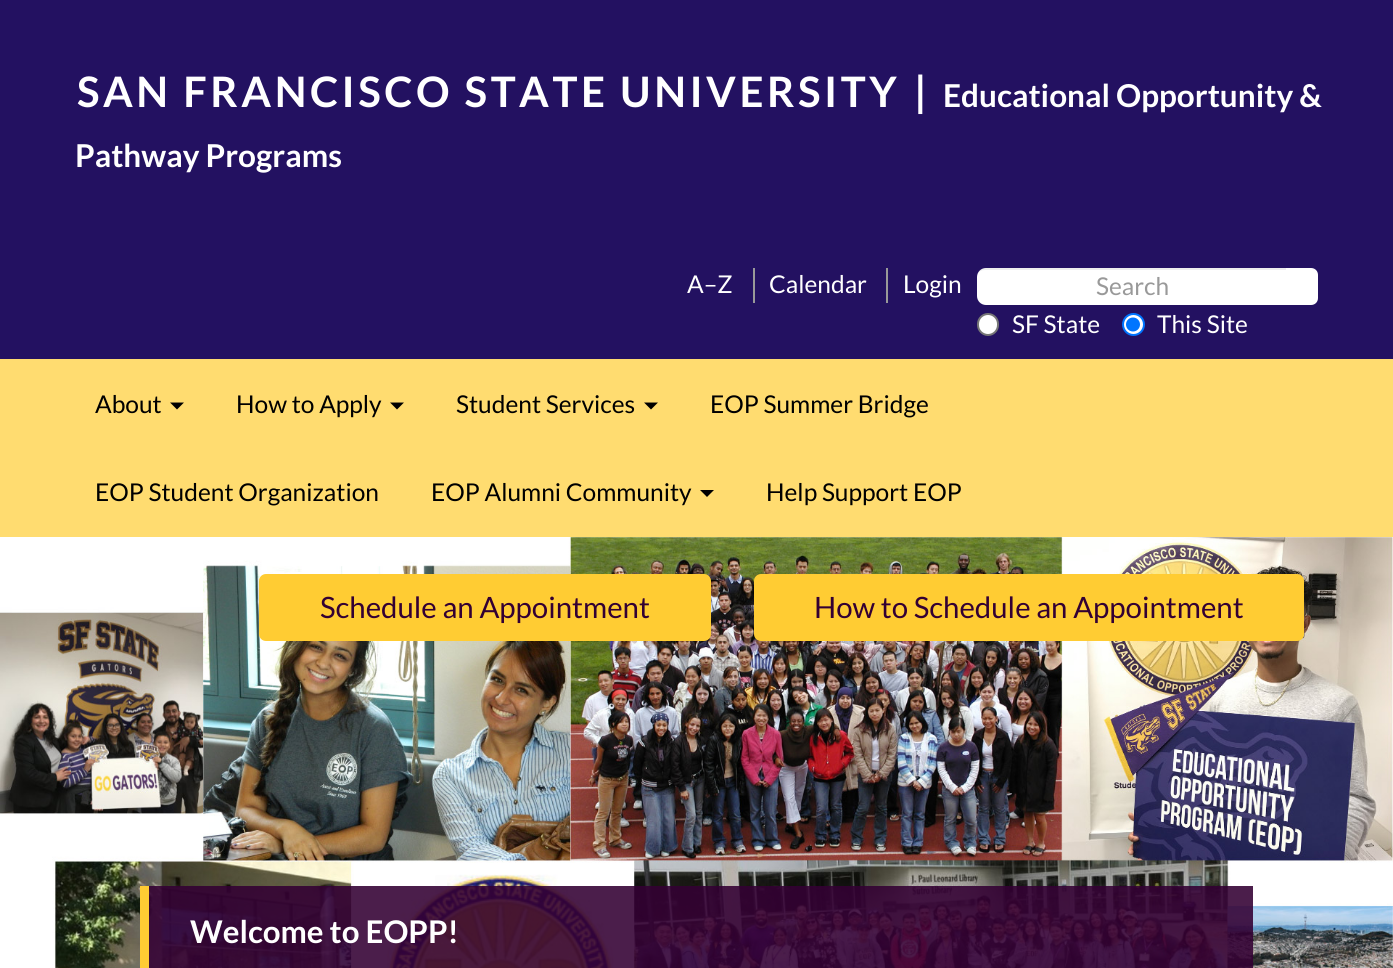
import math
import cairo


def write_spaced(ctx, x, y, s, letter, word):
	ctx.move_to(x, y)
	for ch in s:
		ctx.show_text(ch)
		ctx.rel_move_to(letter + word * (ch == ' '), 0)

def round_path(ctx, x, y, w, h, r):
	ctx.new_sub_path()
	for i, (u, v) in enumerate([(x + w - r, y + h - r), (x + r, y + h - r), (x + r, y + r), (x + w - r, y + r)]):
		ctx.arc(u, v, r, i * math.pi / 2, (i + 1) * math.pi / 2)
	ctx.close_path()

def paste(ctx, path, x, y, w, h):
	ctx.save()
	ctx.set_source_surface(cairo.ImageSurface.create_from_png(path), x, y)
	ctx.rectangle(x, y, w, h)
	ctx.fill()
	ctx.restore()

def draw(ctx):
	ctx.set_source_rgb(1, 1, 1)
	ctx.paint()
	ctx.set_source_rgb(0.137, 0.067, 0.38)
	ctx.rectangle(0, 0, 1393, 359)
	ctx.fill()
	ctx.select_font_face('Lato', cairo.FONT_SLANT_NORMAL, cairo.FONT_WEIGHT_BOLD)
	ctx.set_font_size(42)
	ctx.set_source_rgb(1, 1, 1)
	write_spaced(ctx, 77, 107, 'SAN FRANCISCO STATE UNIVERSITY', 3.5, 0)
	write_spaced(ctx, 914, 107, '|', 3.5, 0)
	ctx.set_font_size(31.5)
	ctx.move_to(943, 107)
	ctx.show_text('Educational Opportunity &')
	ctx.move_to(75, 167)
	ctx.show_text('Pathway Programs')
	ctx.set_source_rgb(0.6, 0.6, 0.6)
	ctx.rectangle(753, 268, 2, 35)
	ctx.fill()
	ctx.select_font_face('Lato')
	ctx.set_font_size(24.5)
	ctx.set_source_rgb(1, 1, 1)
	ctx.move_to(687, 293)
	ctx.show_text('A–Z')
	ctx.set_source_rgb(0.6, 0.6, 0.6)
	ctx.rectangle(886, 268, 2, 35)
	ctx.fill()
	ctx.set_source_rgb(1, 1, 1)
	ctx.move_to(769, 293)
	ctx.show_text('Calendar')
	ctx.move_to(903, 293)
	ctx.show_text('Login')
	ctx.new_path()
	ctx.move_to(986, 268)
	ctx.line_to(1288, 268)
	ctx.line_to(1288, 305)
	ctx.line_to(986, 305)
	ctx.curve_to(981, 305, 977, 301, 977, 296)
	ctx.line_to(977, 277)
	ctx.curve_to(977, 272, 981, 268, 986, 268)
	ctx.close_path()
	ctx.fill()
	ctx.set_source_rgba(0, 0, 0, 0.07)
	ctx.new_path()
	ctx.move_to(985, 270)
	ctx.line_to(1288, 270)
	ctx.line_to(1288, 268)
	ctx.line_to(986, 268)
	ctx.curve_to(983, 268, 980, 270, 978, 273)
	ctx.curve_to(980, 271, 982, 270, 985, 270)
	ctx.close_path()
	ctx.fill()
	ctx.set_source_rgb(0.6, 0.6, 0.6)
	ctx.move_to(1096, 295)
	ctx.show_text('Search')
	ctx.set_source_rgb(1, 1, 1)
	ctx.new_path()
	ctx.move_to(1286, 268)
	ctx.line_to(1311, 268)
	ctx.curve_to(1315, 268, 1318, 271, 1318, 275)
	ctx.line_to(1318, 298)
	ctx.curve_to(1318, 302, 1315, 305, 1311, 305)
	ctx.line_to(1286, 305)
	ctx.close_path()
	ctx.fill()
	round_path(ctx, 978, 314, 20, 21, 10)
	ctx.fill_preserve()
	ctx.set_source_rgb(0.463, 0.463, 0.463)
	ctx.stroke()
	ctx.set_source_rgb(1, 1, 1)
	ctx.move_to(1012, 333)
	ctx.show_text('SF State')
	ctx.new_path()
	ctx.arc(1133.5, 324.5, 10.5, 0, 2 * math.pi)
	ctx.fill_preserve()
	ctx.set_source_rgb(0, 0.459, 1)
	ctx.stroke()
	ctx.arc(1133, 324.5, 7, 0, 2 * math.pi)
	ctx.fill()
	ctx.set_source_rgb(1, 1, 1)
	ctx.move_to(1157, 333)
	ctx.show_text('This Site')
	ctx.set_source_rgb(1, 0.863, 0.439)
	ctx.rectangle(0, 359, 1393, 178)
	ctx.fill()
	ctx.set_source_rgb(0, 0, 0)
	ctx.move_to(95, 413)
	ctx.show_text('About')
	ctx.new_path()
	ctx.move_to(170, 402.5)
	ctx.line_to(184, 402.5)
	ctx.line_to(177, 409.5)
	ctx.close_path()
	ctx.fill()
	ctx.move_to(236, 413)
	ctx.show_text('How to Apply')
	ctx.new_path()
	ctx.move_to(390, 402.5)
	ctx.line_to(404, 402.5)
	ctx.line_to(397, 409.5)
	ctx.close_path()
	ctx.fill()
	ctx.move_to(456, 413)
	ctx.show_text('Student Services')
	ctx.new_path()
	ctx.move_to(644, 402.5)
	ctx.line_to(658, 402.5)
	ctx.line_to(651, 409.5)
	ctx.close_path()
	ctx.fill()
	for x, y, s in [
		(710, 413, 'EOP Summer Bridge'),
		(95, 501, 'EOP Student Organization'),
		(431, 501, 'EOP Alumni Community'),
	]:
		ctx.move_to(x, y)
		ctx.show_text(s)
	ctx.new_path()
	ctx.move_to(700, 490)
	ctx.line_to(714, 490)
	ctx.line_to(707, 497)
	ctx.close_path()
	ctx.fill()
	ctx.move_to(766, 501)
	ctx.show_text('Help Support EOP')
	paste(ctx, 'media/1.png', 0, 537, 1393, 431)
	ctx.set_source_rgb(1, 0.8, 0.2)
	round_path(ctx, 259, 574, 452, 67, 7)
	ctx.fill()
	ctx.set_font_size(29.4)
	ctx.set_source_rgb(0.2, 0, 0.2)
	ctx.move_to(320, 618)
	ctx.show_text('Schedule an Appointment')
	ctx.set_source_rgb(1, 0.8, 0.2)
	round_path(ctx, 754, 574, 550, 67, 7)
	ctx.fill()
	ctx.set_source_rgb(0.2, 0, 0.2)
	ctx.move_to(814, 618)
	ctx.show_text('How to Schedule an Appointment')
	ctx.set_source_rgba(0.2, 0, 0.2, 0.88)
	ctx.rectangle(149, 886, 1104, 82)
	ctx.fill()
	ctx.set_source_rgb(1, 0.8, 0.2)
	ctx.rectangle(140, 886, 9, 82)
	ctx.fill()
	ctx.select_font_face('Lato', cairo.FONT_SLANT_NORMAL, cairo.FONT_WEIGHT_BOLD)
	ctx.set_font_size(31.25)
	ctx.set_source_rgb(1, 1, 1)
	ctx.move_to(190, 943)
	ctx.show_text('Welcome to EOPP!')


surface = cairo.ImageSurface(cairo.FORMAT_RGB24, 1393, 968)
ctx = cairo.Context(surface)
options = cairo.FontOptions()
options.set_hint_metrics(cairo.HINT_METRICS_OFF)
options.set_hint_style(cairo.HINT_STYLE_NONE)
ctx.set_font_options(options)
ctx.set_miter_limit(4)
draw(ctx)
surface.write_to_png('image.png')
